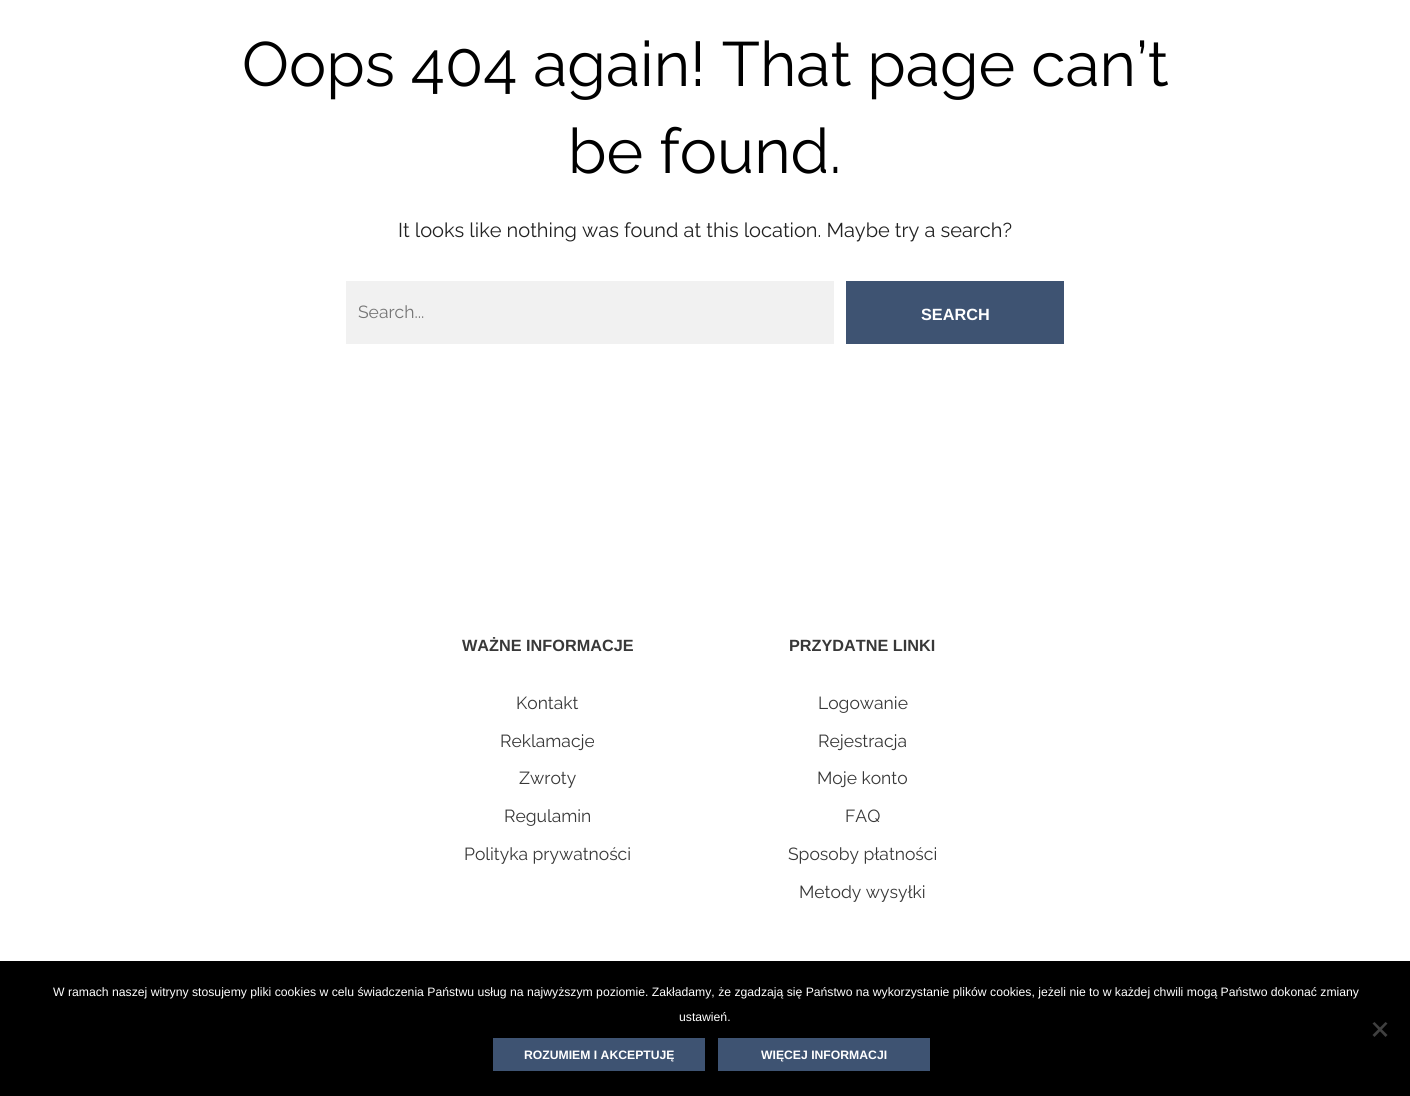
import math
import cairo


def draw(ctx):
	ctx.set_source_rgb(1, 1, 1)
	ctx.paint()
	ctx.select_font_face('Raleway')
	ctx.set_font_size(62.5)
	ctx.set_source_rgb(0, 0, 0)
	ctx.move_to(242, 86)
	ctx.show_text('Oops 404 again! That page can’t')
	ctx.move_to(568, 173)
	ctx.show_text('be found.')
	ctx.set_font_size(20)
	ctx.set_source_rgb(0.133, 0.133, 0.133)
	ctx.move_to(398, 237)
	ctx.show_text('It looks like nothing was found at this location. Maybe try a search?')
	ctx.set_source_rgb(0.945, 0.945, 0.945)
	ctx.rectangle(346, 281, 488, 63)
	ctx.fill()
	ctx.set_font_size(17.5)
	ctx.set_source_rgb(0.459, 0.459, 0.459)
	ctx.move_to(358, 318)
	ctx.show_text('Search...')
	ctx.set_source_rgb(0.243, 0.325, 0.447)
	ctx.rectangle(846, 281, 218, 63)
	ctx.fill()
	ctx.select_font_face('Liberation Sans', cairo.FONT_SLANT_NORMAL, cairo.FONT_WEIGHT_BOLD)
	ctx.set_font_size(16.25)
	ctx.set_source_rgb(1, 1, 1)
	ctx.move_to(921, 320)
	ctx.show_text('SEARCH')
	ctx.set_source_rgb(0.22, 0.22, 0.22)
	ctx.move_to(462, 651)
	ctx.show_text('WAŻNE INFORMACJE')
	ctx.select_font_face('Raleway')
	ctx.set_font_size(17.5)
	for x, y, s in [
		(516, 709, 'Kontakt'),
		(500, 747, 'Reklamacje'),
		(519, 784, 'Zwroty'),
		(504, 822, 'Regulamin'),
		(464, 860, 'Polityka prywatności'),
	]:
		ctx.move_to(x, y)
		ctx.show_text(s)
	ctx.select_font_face('Liberation Sans', cairo.FONT_SLANT_NORMAL, cairo.FONT_WEIGHT_BOLD)
	ctx.set_font_size(16.25)
	ctx.move_to(789, 651)
	ctx.show_text('PRZYDATNE LINKI')
	ctx.select_font_face('Raleway')
	ctx.set_font_size(17.5)
	for x, y, s in [
		(818, 709, 'Logowanie'),
		(818, 747, 'Rejestracja'),
		(817, 784, 'Moje konto'),
		(845, 822, 'FAQ'),
		(788, 860, 'Sposoby płatności'),
		(799, 898, 'Metody wysyłki'),
	]:
		ctx.move_to(x, y)
		ctx.show_text(s)
	ctx.set_source_rgb(0, 0, 0)
	ctx.rectangle(0, 961, 1410, 135)
	ctx.fill()
	ctx.select_font_face('Liberation Sans')
	ctx.set_font_size(12.2)
	ctx.set_source_rgb(1, 1, 1)
	ctx.move_to(53, 996)
	ctx.show_text('W ramach naszej witryny stosujemy pliki cookies w celu świadczenia Państwu usług na najwyższym poziomie. Zakładamy, że zgadzają się Państwo na wykorzystanie plików cookies, jeżeli nie to w każdej chwili mogą Państwo dokonać zmiany')
	ctx.move_to(679, 1021)
	ctx.show_text('ustawień.')
	ctx.set_source_rgb(0.251, 0.251, 0.251)
	ctx.new_path()
	ctx.move_to(1385.5, 1022)
	ctx.line_to(1387.5, 1023.5)
	ctx.line_to(1374.5, 1037)
	ctx.line_to(1372.5, 1035)
	ctx.close_path()
	ctx.fill()
	ctx.new_path()
	ctx.move_to(1372.5, 1023.5)
	ctx.line_to(1374.5, 1022)
	ctx.line_to(1387.5, 1035)
	ctx.line_to(1385.5, 1037)
	ctx.close_path()
	ctx.fill()
	ctx.set_source_rgb(0.243, 0.325, 0.447)
	ctx.rectangle(493, 1038, 212, 33)
	ctx.fill()
	ctx.select_font_face('Liberation Sans', cairo.FONT_SLANT_NORMAL, cairo.FONT_WEIGHT_BOLD)
	ctx.set_source_rgb(1, 1, 1)
	ctx.move_to(524, 1059)
	ctx.show_text('ROZUMIEM I AKCEPTUJĘ')
	ctx.set_source_rgb(0.243, 0.325, 0.447)
	ctx.rectangle(718, 1038, 212, 33)
	ctx.fill()
	ctx.set_source_rgb(1, 1, 1)
	ctx.move_to(761, 1059)
	ctx.show_text('WIĘCEJ INFORMACJI')


surface = cairo.ImageSurface(cairo.FORMAT_RGB24, 1410, 1096)
ctx = cairo.Context(surface)
options = cairo.FontOptions()
options.set_hint_metrics(cairo.HINT_METRICS_OFF)
options.set_hint_style(cairo.HINT_STYLE_NONE)
ctx.set_font_options(options)
ctx.set_miter_limit(4)
draw(ctx)
surface.write_to_png('image.png')
